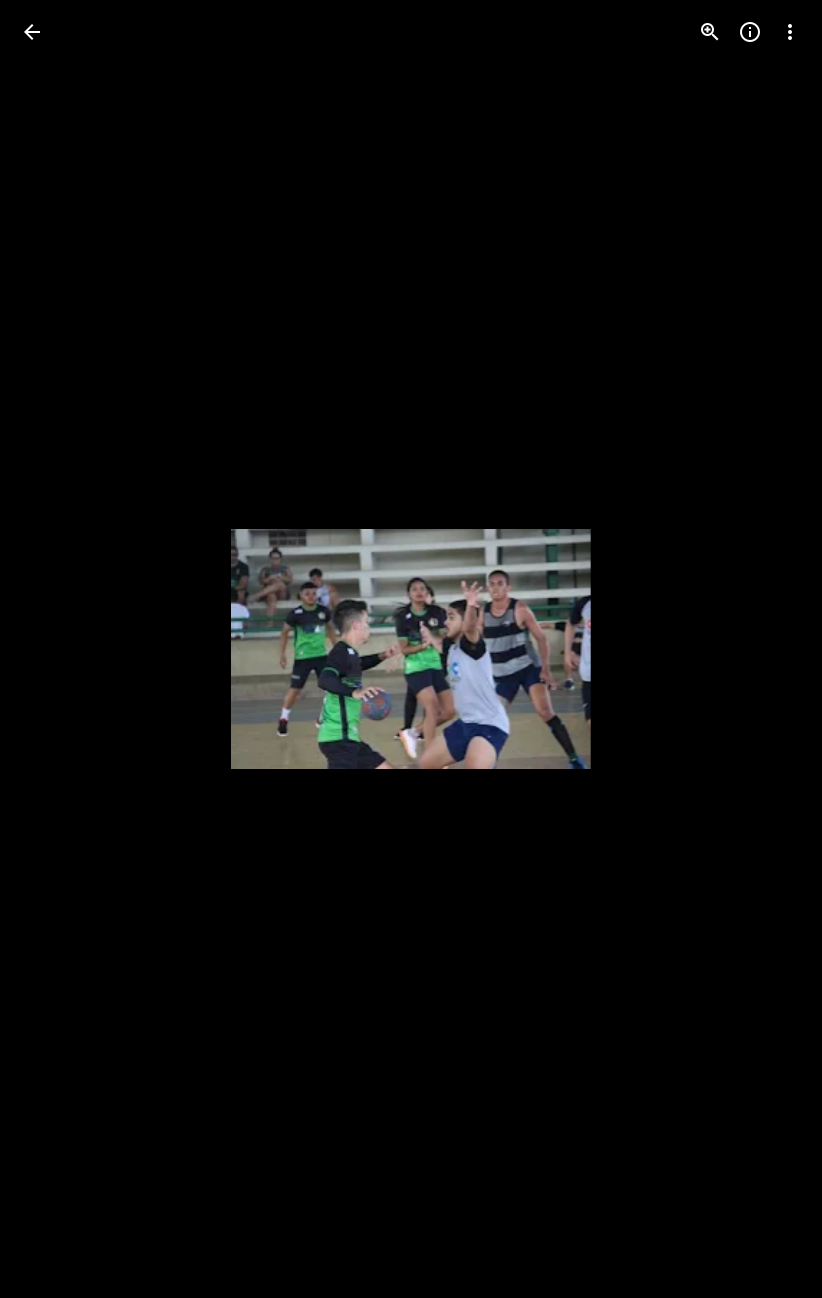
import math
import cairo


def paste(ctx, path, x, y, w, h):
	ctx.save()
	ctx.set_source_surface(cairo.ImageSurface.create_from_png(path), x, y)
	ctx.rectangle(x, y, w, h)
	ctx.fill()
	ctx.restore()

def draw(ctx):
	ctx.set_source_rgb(0, 0, 0)
	ctx.paint()
	paste(ctx, 'media/1.png', 24, 24, 16, 16)
	paste(ctx, 'media/2.png', 701, 23, 18, 18)
	paste(ctx, 'media/3.png', 740, 22, 20, 20)
	paste(ctx, 'media/4.png', 788, 24, 4, 16)
	paste(ctx, 'media/5.png', 231, 529, 360, 240)


surface = cairo.ImageSurface(cairo.FORMAT_RGB24, 822, 1298)
ctx = cairo.Context(surface)
options = cairo.FontOptions()
options.set_hint_metrics(cairo.HINT_METRICS_OFF)
options.set_hint_style(cairo.HINT_STYLE_NONE)
ctx.set_font_options(options)
ctx.set_miter_limit(4)
draw(ctx)
surface.write_to_png('image.png')
